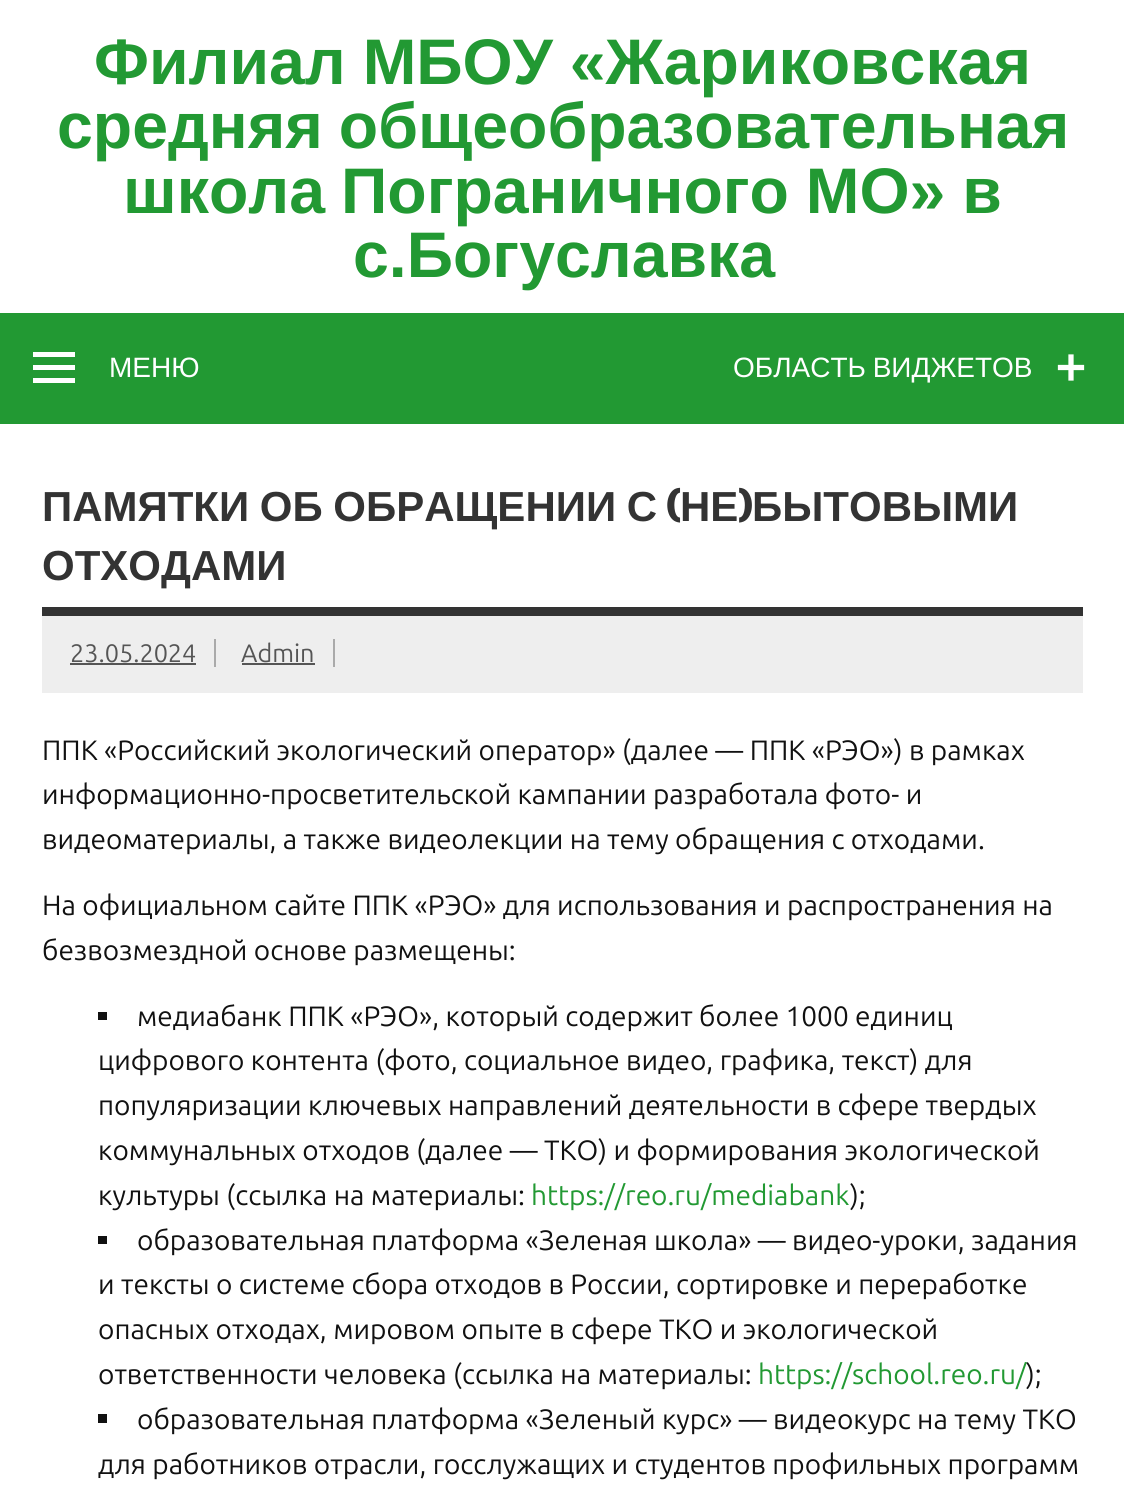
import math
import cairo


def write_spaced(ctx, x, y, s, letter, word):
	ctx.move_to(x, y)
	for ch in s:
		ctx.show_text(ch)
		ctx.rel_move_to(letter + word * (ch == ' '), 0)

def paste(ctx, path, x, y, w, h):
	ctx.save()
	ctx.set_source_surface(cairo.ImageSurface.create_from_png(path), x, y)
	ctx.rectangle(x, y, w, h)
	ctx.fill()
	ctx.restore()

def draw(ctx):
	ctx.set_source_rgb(1, 1, 1)
	ctx.paint()
	ctx.select_font_face('Liberation Sans', cairo.FONT_SLANT_NORMAL, cairo.FONT_WEIGHT_BOLD)
	ctx.set_font_size(64.4)
	ctx.set_source_rgb(0.133, 0.6, 0.2)
	write_spaced(ctx, 94, 84, 'Филиал МБОУ «Жариковская', 0, -1)
	write_spaced(ctx, 57, 148, 'средняя общеобразовательная', 0, -2)
	ctx.move_to(123, 213)
	ctx.show_text('школа')
	write_spaced(ctx, 341, 213, 'Пограничного МО» в', 0, -1)
	ctx.move_to(353, 277)
	ctx.show_text('с.Богуславка')
	ctx.rectangle(0, 313, 1124, 111)
	ctx.fill()
	ctx.set_source_rgb(1, 1, 1)
	ctx.new_path()
	ctx.move_to(33, 383)
	ctx.line_to(33, 378)
	ctx.line_to(75, 378)
	ctx.line_to(75, 383)
	ctx.close_path()
	ctx.move_to(33, 352)
	ctx.line_to(75, 352)
	ctx.line_to(75, 357)
	ctx.line_to(33, 357)
	ctx.close_path()
	ctx.move_to(33, 370)
	ctx.line_to(33, 365)
	ctx.line_to(75, 365)
	ctx.line_to(75, 370)
	ctx.close_path()
	ctx.fill()
	ctx.select_font_face('Liberation Sans')
	ctx.set_font_size(28)
	ctx.move_to(109, 377)
	ctx.show_text('МЕНЮ')
	write_spaced(ctx, 733, 377, 'ОБЛАСТЬ ВИДЖЕТОВ', 0, -1)
	paste(ctx, 'media/1.png', 1057, 354, 28, 27)
	ctx.set_source_rgb(0.2, 0.2, 0.2)
	ctx.rectangle(42, 607, 1041, 9)
	ctx.fill()
	ctx.select_font_face('Liberation Sans', cairo.FONT_SLANT_NORMAL, cairo.FONT_WEIGHT_BOLD)
	ctx.set_font_size(42)
	write_spaced(ctx, 42, 521, 'ПАМЯТКИ ОБ ОБРАЩЕНИИ С', 0, -1)
	ctx.select_font_face('Francois One', cairo.FONT_SLANT_NORMAL, cairo.FONT_WEIGHT_BOLD)
	ctx.move_to(666, 521)
	ctx.show_text('(')
	ctx.select_font_face('Liberation Sans', cairo.FONT_SLANT_NORMAL, cairo.FONT_WEIGHT_BOLD)
	ctx.move_to(680, 521)
	ctx.show_text('НЕ')
	ctx.select_font_face('Francois One', cairo.FONT_SLANT_NORMAL, cairo.FONT_WEIGHT_BOLD)
	ctx.move_to(738, 521)
	ctx.show_text(')')
	ctx.select_font_face('Liberation Sans', cairo.FONT_SLANT_NORMAL, cairo.FONT_WEIGHT_BOLD)
	ctx.move_to(752, 521)
	ctx.show_text('БЫТОВЫМИ')
	ctx.move_to(42, 580)
	ctx.show_text('ОТХОДАМИ')
	ctx.set_source_rgb(0.933, 0.933, 0.933)
	ctx.rectangle(42, 616, 1041, 77)
	ctx.fill()
	ctx.select_font_face('Ubuntu')
	ctx.set_font_size(25.25)
	ctx.set_source_rgb(0.333, 0.333, 0.333)
	ctx.move_to(70, 662)
	ctx.show_text('23.05.2024')
	ctx.set_source_rgb(0.667, 0.667, 0.667)
	ctx.rectangle(214, 639, 2, 28)
	ctx.fill()
	ctx.set_source_rgb(0.333, 0.333, 0.333)
	ctx.rectangle(70, 663, 126, 2)
	ctx.fill()
	ctx.move_to(241, 662)
	ctx.show_text('Admin')
	ctx.set_source_rgb(0.667, 0.667, 0.667)
	ctx.rectangle(333, 639, 2, 28)
	ctx.fill()
	ctx.set_source_rgb(0.333, 0.333, 0.333)
	ctx.rectangle(242, 663, 73, 2)
	ctx.fill()
	ctx.set_font_size(28)
	ctx.set_source_rgb(0.067, 0.067, 0.067)
	for x, y, s in [
		(42, 760, 'ППК «Российский экологический оператор» (далее — ППК «РЭО») в рамках'),
		(42, 804, 'информационно-просветительской кампании разработала фото- и'),
		(42, 849, 'видеоматериалы, а также видеолекции на тему обращения с отходами.'),
		(42, 915, 'На официальном сайте ППК «РЭО» для использования и распространения на'),
		(42, 960, 'безвозмездной основе размещены:'),
	]:
		ctx.move_to(x, y)
		ctx.show_text(s)
	ctx.rectangle(98, 1012, 9, 8)
	ctx.fill()
	for x, y, s in [
		(137, 1026, 'медиабанк ППК «РЭО», который содержит более 1000 единиц'),
		(98, 1070, 'цифрового контента (фото, социальное видео, графика, текст) для'),
		(98, 1115, 'популяризации ключевых направлений деятельности в сфере твердых'),
		(98, 1160, 'коммунальных отходов (далее — ТКО) и формирования экологической'),
		(98, 1205, 'культуры (ссылка на материалы:'),
	]:
		ctx.move_to(x, y)
		ctx.show_text(s)
	ctx.set_source_rgb(0.133, 0.6, 0.2)
	ctx.move_to(531, 1205)
	ctx.show_text('https://reo.ru/mediabank')
	ctx.set_source_rgb(0.067, 0.067, 0.067)
	ctx.move_to(850, 1205)
	ctx.show_text(');')
	ctx.rectangle(98, 1236, 9, 8)
	ctx.fill()
	for x, y, s in [
		(137, 1250, 'образовательная платформа «Зеленая школа» — видео-уроки, задания'),
		(98, 1294, 'и тексты о системе сбора отходов в России, сортировке и переработке'),
		(98, 1339, 'опасных отходах, мировом опыте в сфере ТКО и экологической'),
		(98, 1384, 'ответственности человека (ссылка на материалы:'),
	]:
		ctx.move_to(x, y)
		ctx.show_text(s)
	ctx.set_source_rgb(0.133, 0.6, 0.2)
	ctx.move_to(758, 1384)
	ctx.show_text('https://school.reo.ru/')
	ctx.set_source_rgb(0.067, 0.067, 0.067)
	ctx.move_to(1026, 1384)
	ctx.show_text(');')
	ctx.rectangle(98, 1414, 9, 9)
	ctx.fill()
	ctx.move_to(137, 1429)
	ctx.show_text('образовательная платформа «Зеленый курс» — видеокурс на тему ТКО')
	ctx.move_to(98, 1474)
	ctx.show_text('для работников отрасли, госслужащих и студентов профильных программ')


surface = cairo.ImageSurface(cairo.FORMAT_RGB24, 1124, 1491)
ctx = cairo.Context(surface)
options = cairo.FontOptions()
options.set_hint_metrics(cairo.HINT_METRICS_OFF)
options.set_hint_style(cairo.HINT_STYLE_NONE)
ctx.set_font_options(options)
ctx.set_miter_limit(4)
draw(ctx)
surface.write_to_png('image.png')
